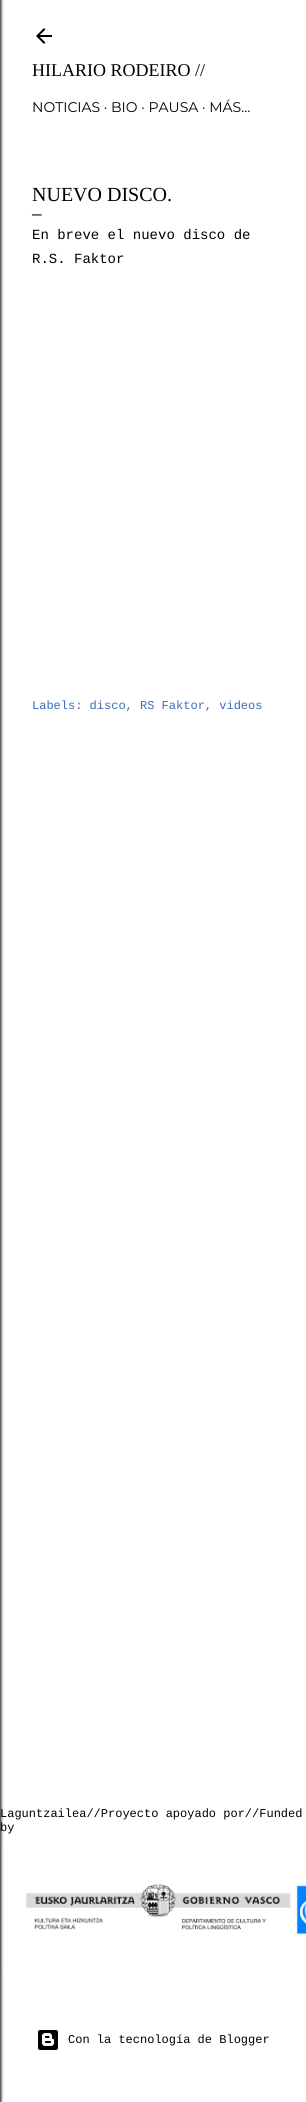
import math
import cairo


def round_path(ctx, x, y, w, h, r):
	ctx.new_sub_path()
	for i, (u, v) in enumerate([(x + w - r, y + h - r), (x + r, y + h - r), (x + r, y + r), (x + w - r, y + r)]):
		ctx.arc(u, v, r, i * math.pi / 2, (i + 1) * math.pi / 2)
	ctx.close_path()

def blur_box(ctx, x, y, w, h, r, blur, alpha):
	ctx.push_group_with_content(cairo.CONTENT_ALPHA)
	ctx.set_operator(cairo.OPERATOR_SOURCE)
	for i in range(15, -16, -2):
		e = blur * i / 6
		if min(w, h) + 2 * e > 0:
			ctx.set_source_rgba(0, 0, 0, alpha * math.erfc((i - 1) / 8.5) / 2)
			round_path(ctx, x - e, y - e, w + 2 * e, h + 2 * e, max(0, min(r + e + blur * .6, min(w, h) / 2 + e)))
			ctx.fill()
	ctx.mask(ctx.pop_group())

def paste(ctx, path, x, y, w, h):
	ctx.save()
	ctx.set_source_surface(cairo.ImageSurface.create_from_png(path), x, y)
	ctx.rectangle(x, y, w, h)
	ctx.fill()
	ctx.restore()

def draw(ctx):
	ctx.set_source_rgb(1, 1, 1)
	ctx.paint()
	paste(ctx, 'media/2.png', 0, 1847, 306, 126)
	ctx.set_source_rgb(0, 0, 0)
	blur_box(ctx, -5, 0, 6, 2102, 0, 1.5, 1)
	paste(ctx, 'media/1.png', 36, 28, 16, 16)
	ctx.select_font_face('Liberation Serif')
	ctx.set_font_size(18)
	ctx.set_source_rgb(0, 0, 0)
	ctx.move_to(32, 76)
	ctx.show_text('HILARIO RODEIRO //')
	ctx.select_font_face('Montserrat')
	ctx.set_font_size(14)
	ctx.move_to(32, 112)
	ctx.show_text('NOTICIAS · BIO · PAUSA · MÁS…')
	ctx.select_font_face('Liberation Serif')
	ctx.set_font_size(20)
	ctx.move_to(32, 201)
	ctx.show_text('NUEVO DISCO.')
	ctx.select_font_face('Liberation Mono')
	ctx.set_font_size(16)
	ctx.move_to(32, 219)
	ctx.show_text('—')
	ctx.set_font_size(14)
	ctx.move_to(32, 239)
	ctx.show_text('En breve el nuevo disco de')
	ctx.move_to(32, 263)
	ctx.show_text('R.S. Faktor')
	ctx.set_font_size(12)
	ctx.set_source_rgb(0.216, 0.42, 0.745)
	ctx.move_to(32, 709)
	ctx.show_text('Labels: disco, RS Faktor, videos')
	ctx.set_source_rgb(0, 0, 0)
	ctx.move_to(0, 1817)
	ctx.show_text('Laguntzailea//Proyecto apoyado por//Funded')
	ctx.move_to(0, 1831)
	ctx.show_text('by')
	paste(ctx, 'media/3.png', 38, 2030, 20, 20)
	ctx.move_to(68, 2043)
	ctx.show_text('Con la tecnología de Blogger')


surface = cairo.ImageSurface(cairo.FORMAT_RGB24, 306, 2102)
ctx = cairo.Context(surface)
options = cairo.FontOptions()
options.set_hint_metrics(cairo.HINT_METRICS_OFF)
options.set_hint_style(cairo.HINT_STYLE_NONE)
ctx.set_font_options(options)
ctx.set_miter_limit(4)
draw(ctx)
surface.write_to_png('image.png')
